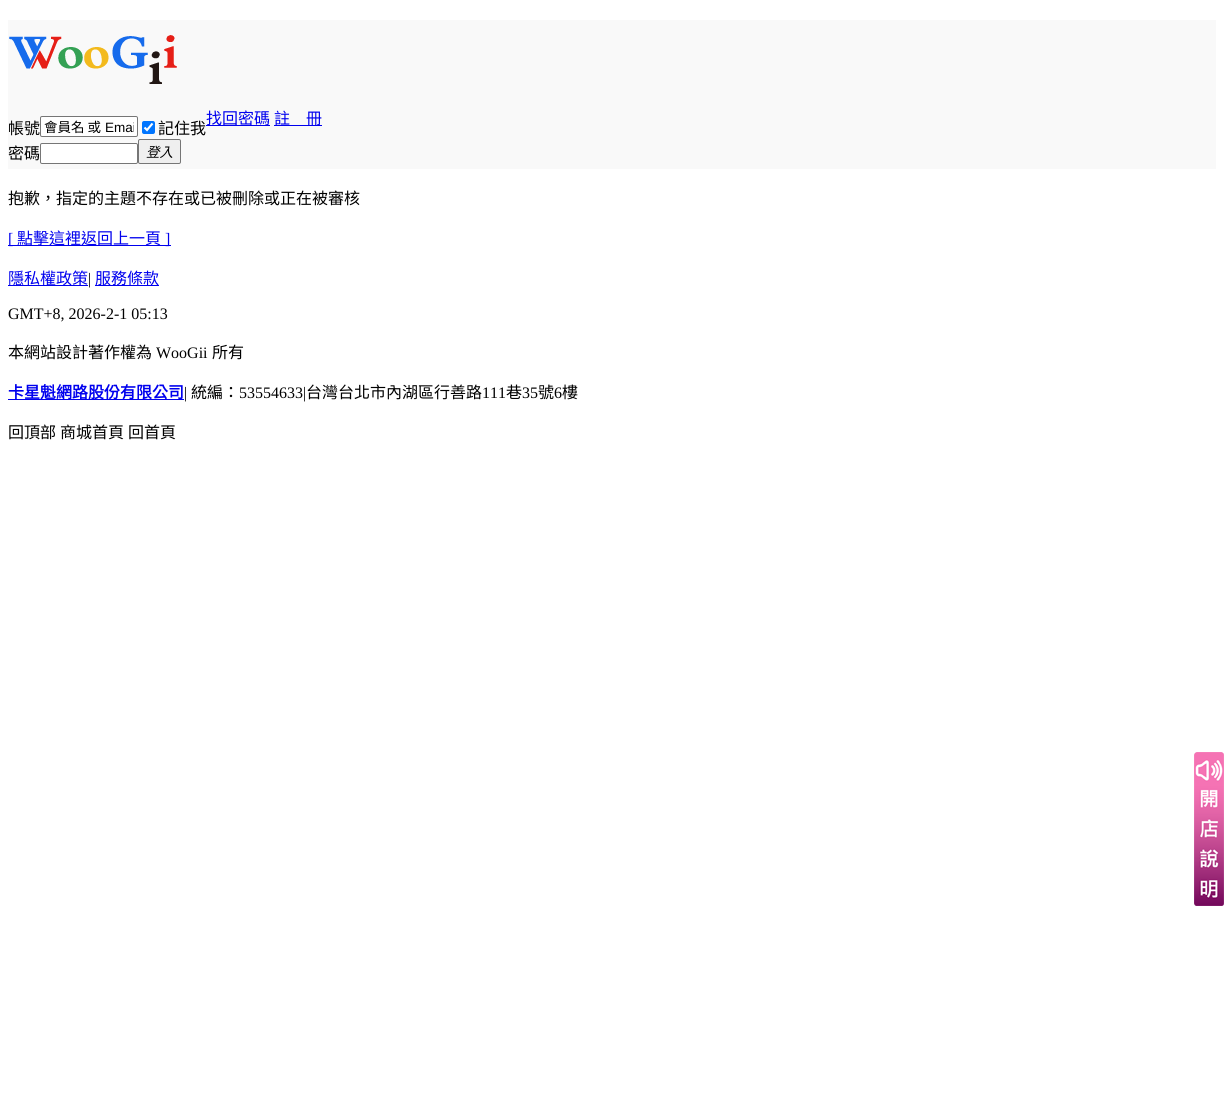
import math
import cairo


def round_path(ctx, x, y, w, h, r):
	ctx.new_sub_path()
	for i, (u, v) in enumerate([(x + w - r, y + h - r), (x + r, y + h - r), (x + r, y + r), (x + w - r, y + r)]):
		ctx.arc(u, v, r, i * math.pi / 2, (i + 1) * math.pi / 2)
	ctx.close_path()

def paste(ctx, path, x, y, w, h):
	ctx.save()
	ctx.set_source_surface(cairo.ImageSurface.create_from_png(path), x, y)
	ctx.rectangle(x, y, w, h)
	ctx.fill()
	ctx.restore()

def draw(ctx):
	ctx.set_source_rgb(1, 1, 1)
	ctx.paint()
	ctx.set_source_rgb(0.973, 0.973, 0.973)
	ctx.rectangle(8, 20, 1208, 149)
	ctx.fill()
	paste(ctx, 'media/1.png', 9, 35, 168, 49)
	ctx.set_source_rgb(0, 0, 0.933)
	ctx.rectangle(206, 125, 64, 1)
	ctx.fill()
	ctx.select_font_face('Noto Sans CJK TC')
	ctx.set_font_size(16)
	ctx.move_to(206, 124)
	ctx.show_text('找回密碼')
	ctx.rectangle(274, 125, 48, 1)
	ctx.fill()
	ctx.move_to(274, 124)
	ctx.show_text('註　冊')
	ctx.set_source_rgb(0, 0, 0)
	ctx.move_to(8, 134)
	ctx.show_text('帳號')
	ctx.set_source_rgb(1, 1, 1)
	round_path(ctx, 40.5, 116.5, 97, 20, 1.5)
	ctx.fill_preserve()
	ctx.set_source_rgb(0.463, 0.463, 0.463)
	ctx.set_line_width(1)
	ctx.stroke()
	ctx.set_font_size(13.5)
	ctx.set_source_rgb(0, 0, 0)
	ctx.move_to(44, 132)
	ctx.show_text('會員名 或')
	ctx.save()
	ctx.rectangle(44, 118, 90, 17)
	ctx.clip()
	ctx.select_font_face('Liberation Sans')
	ctx.move_to(105, 132)
	ctx.show_text('Emai')
	ctx.restore()
	ctx.set_source_rgb(0, 0.459, 1)
	round_path(ctx, 142, 121, 13, 13, 2)
	ctx.fill()
	ctx.new_path()
	ctx.move_to(144.5, 127.5)
	ctx.line_to(147, 130)
	ctx.line_to(152.5, 123.5)
	ctx.set_source_rgb(1, 1, 1)
	ctx.set_line_width(2.1)
	ctx.stroke()
	ctx.set_font_size(16)
	ctx.set_source_rgb(0, 0, 0)
	ctx.move_to(158, 134)
	ctx.show_text('記住我')
	ctx.move_to(8, 159)
	ctx.show_text('密碼')
	ctx.set_source_rgb(1, 1, 1)
	round_path(ctx, 40.5, 143.5, 97, 20, 1.5)
	ctx.fill_preserve()
	ctx.set_source_rgb(0.463, 0.463, 0.463)
	ctx.set_line_width(1)
	ctx.stroke()
	ctx.set_source_rgb(0.937, 0.937, 0.937)
	round_path(ctx, 138.5, 139.5, 42, 24, 1.5)
	ctx.fill_preserve()
	ctx.set_source_rgb(0.463, 0.463, 0.463)
	ctx.stroke()
	ctx.select_font_face('Noto Sans CJK TC', cairo.FONT_SLANT_ITALIC)
	ctx.set_font_size(13.5)
	ctx.set_source_rgb(0, 0, 0)
	ctx.move_to(146, 157)
	ctx.show_text('登入')
	ctx.select_font_face('Noto Sans CJK TC')
	ctx.set_font_size(16)
	ctx.move_to(8, 204)
	ctx.show_text('抱歉，指定的主題不存在或已被刪除或正在被審核')
	ctx.set_source_rgb(0, 0, 0.933)
	ctx.rectangle(8, 245, 163, 1)
	ctx.fill()
	ctx.select_font_face('Liberation Serif')
	ctx.move_to(8, 244)
	ctx.show_text('[')
	ctx.select_font_face('Noto Sans CJK TC')
	ctx.move_to(17, 244)
	ctx.show_text('點擊這裡返回上一頁')
	ctx.select_font_face('Liberation Serif')
	ctx.move_to(165, 244)
	ctx.show_text(']')
	ctx.rectangle(8, 285, 80, 1)
	ctx.fill()
	ctx.select_font_face('Noto Sans CJK TC')
	ctx.move_to(8, 284)
	ctx.show_text('隱私權政策')
	ctx.select_font_face('Liberation Serif')
	ctx.set_source_rgb(0, 0, 0)
	ctx.move_to(88, 284)
	ctx.show_text('|')
	ctx.set_source_rgb(0, 0, 0.933)
	ctx.rectangle(95, 285, 64, 1)
	ctx.fill()
	ctx.select_font_face('Noto Sans CJK TC')
	ctx.move_to(95, 284)
	ctx.show_text('服務條款')
	ctx.select_font_face('Liberation Serif')
	ctx.set_source_rgb(0, 0, 0)
	ctx.move_to(8, 319)
	ctx.show_text('GMT+8, 2026-2-1 05:13')
	ctx.select_font_face('Noto Sans CJK TC')
	ctx.move_to(8, 358)
	ctx.show_text('本網站設計著作權為')
	ctx.select_font_face('Liberation Serif')
	ctx.move_to(156, 358)
	ctx.show_text('WooGii')
	ctx.select_font_face('Noto Sans CJK TC')
	ctx.move_to(212, 358)
	ctx.show_text('所有')
	ctx.set_source_rgb(0, 0, 0.933)
	ctx.rectangle(8, 399, 176, 1)
	ctx.fill()
	ctx.select_font_face('Noto Sans CJK TC', cairo.FONT_SLANT_NORMAL, cairo.FONT_WEIGHT_BOLD)
	ctx.move_to(8, 398)
	ctx.show_text('卡星魁網路股份有限公司')
	ctx.select_font_face('Liberation Serif')
	ctx.set_source_rgb(0, 0, 0)
	ctx.move_to(184, 398)
	ctx.show_text('|')
	ctx.select_font_face('Noto Sans CJK TC')
	ctx.move_to(191, 398)
	ctx.show_text('統編：')
	ctx.select_font_face('Liberation Serif')
	ctx.move_to(239, 398)
	ctx.show_text('53554633|')
	ctx.select_font_face('Noto Sans CJK TC')
	ctx.move_to(306, 398)
	ctx.show_text('台灣台北市內湖區行善路')
	ctx.select_font_face('Liberation Serif')
	ctx.move_to(482, 398)
	ctx.show_text('111')
	ctx.select_font_face('Noto Sans CJK TC')
	ctx.move_to(506, 398)
	ctx.show_text('巷')
	ctx.select_font_face('Liberation Serif')
	ctx.move_to(522, 398)
	ctx.show_text('35')
	ctx.select_font_face('Noto Sans CJK TC')
	ctx.move_to(538, 398)
	ctx.show_text('號')
	ctx.select_font_face('Liberation Serif')
	ctx.move_to(554, 398)
	ctx.show_text('6')
	ctx.select_font_face('Noto Sans CJK TC')
	for x, y, s in [
		(562, 398, '樓'),
		(8, 438, '回頂部'),
		(60, 438, '商城首頁'),
		(128, 438, '回首頁'),
	]:
		ctx.move_to(x, y)
		ctx.show_text(s)
	paste(ctx, 'media/2.png', 1194, 752, 30, 154)


surface = cairo.ImageSurface(cairo.FORMAT_RGB24, 1224, 1097)
ctx = cairo.Context(surface)
options = cairo.FontOptions()
options.set_hint_metrics(cairo.HINT_METRICS_OFF)
options.set_hint_style(cairo.HINT_STYLE_NONE)
ctx.set_font_options(options)
ctx.set_miter_limit(4)
draw(ctx)
surface.write_to_png('image.png')
